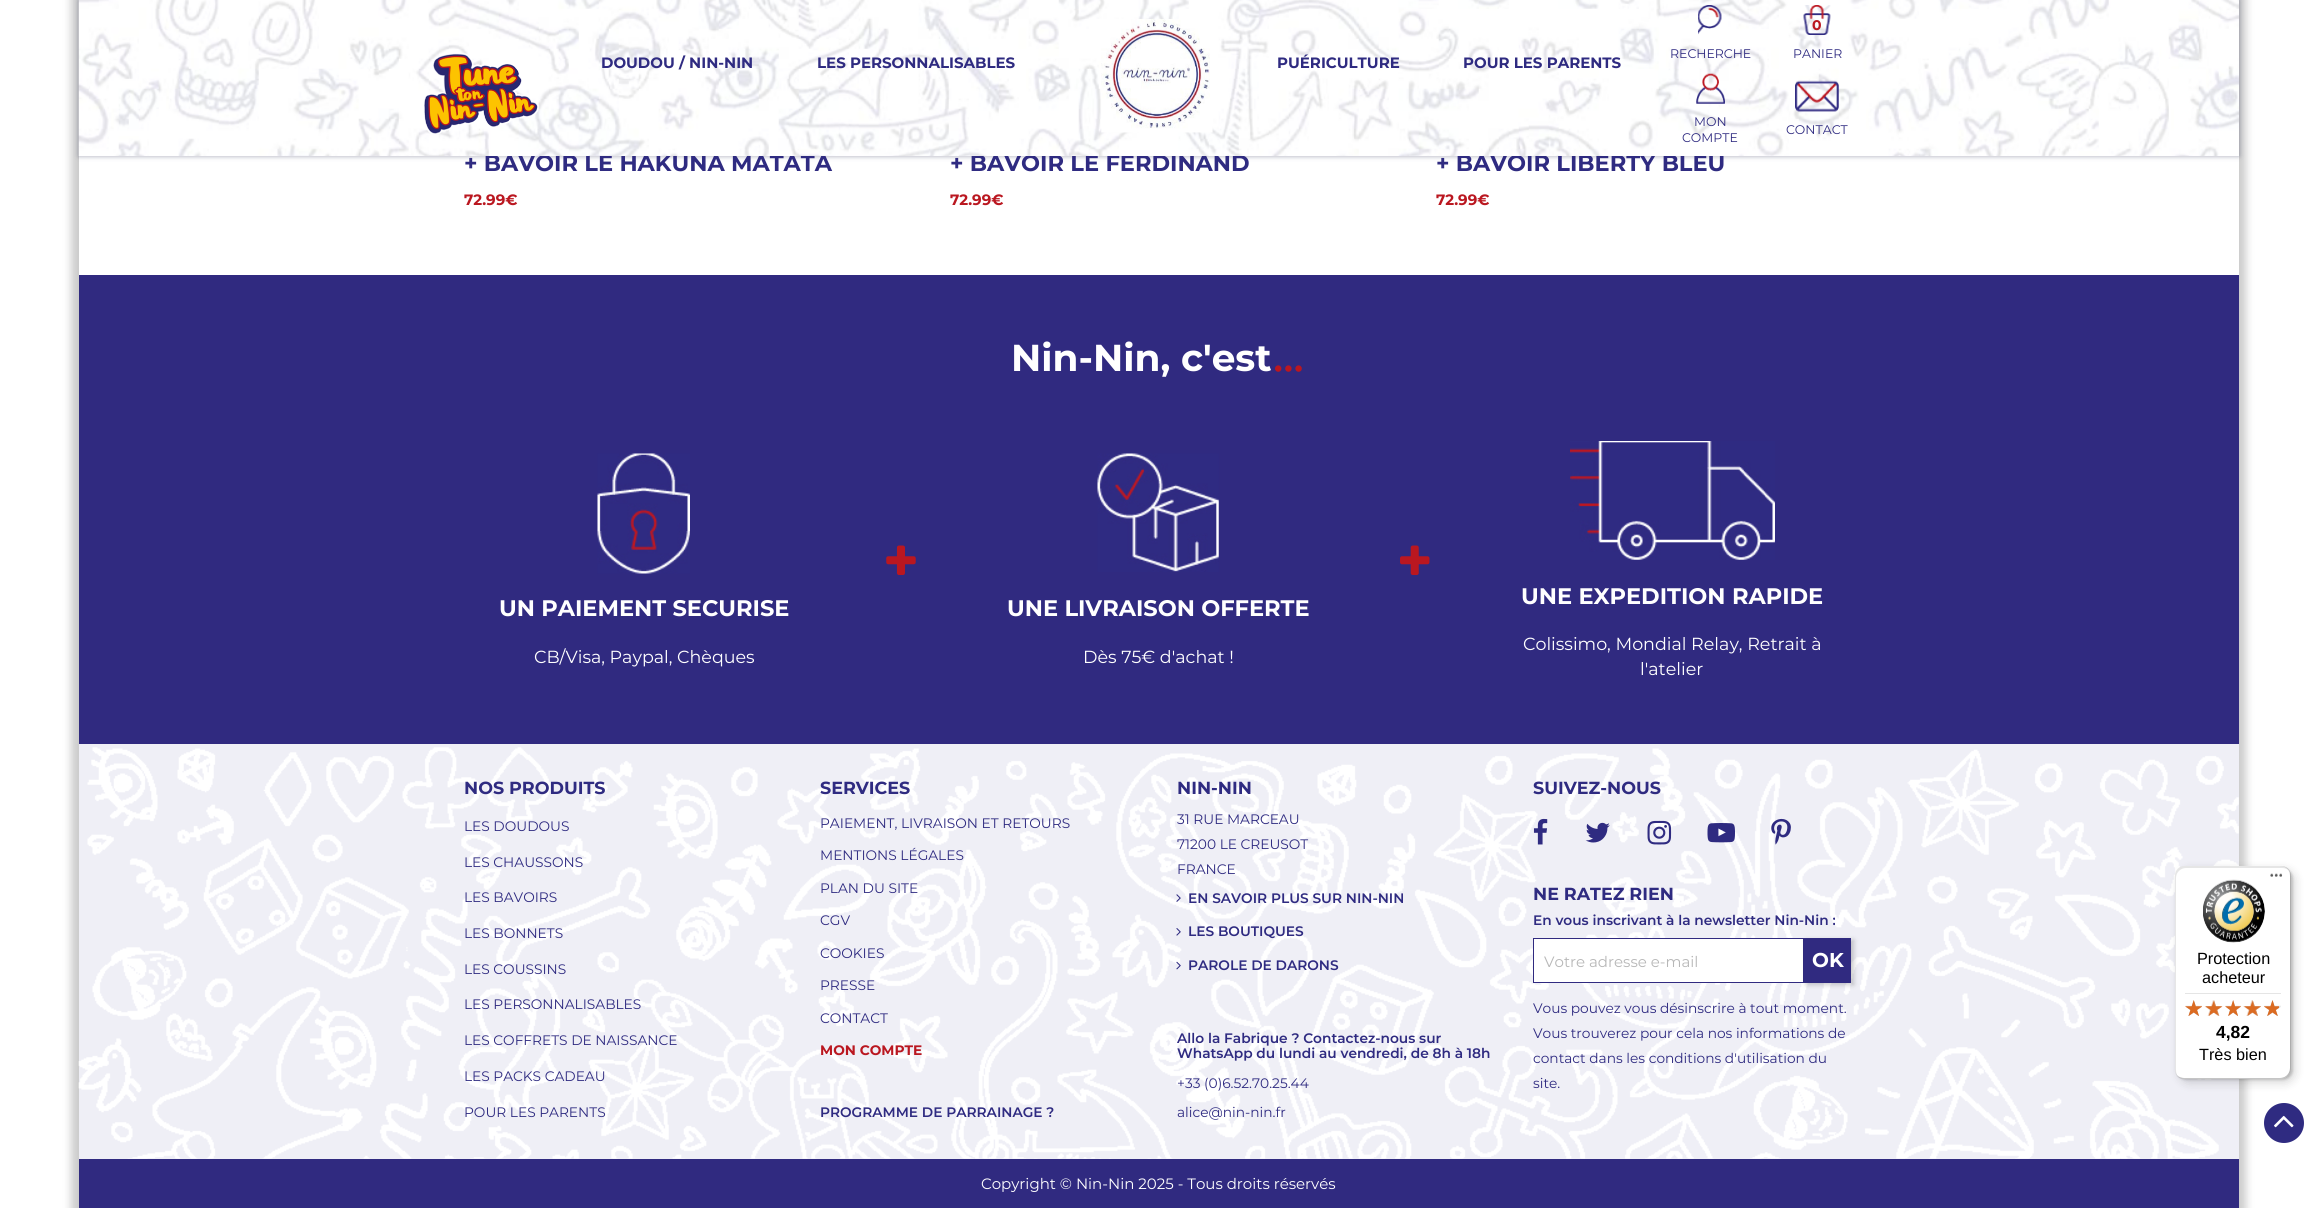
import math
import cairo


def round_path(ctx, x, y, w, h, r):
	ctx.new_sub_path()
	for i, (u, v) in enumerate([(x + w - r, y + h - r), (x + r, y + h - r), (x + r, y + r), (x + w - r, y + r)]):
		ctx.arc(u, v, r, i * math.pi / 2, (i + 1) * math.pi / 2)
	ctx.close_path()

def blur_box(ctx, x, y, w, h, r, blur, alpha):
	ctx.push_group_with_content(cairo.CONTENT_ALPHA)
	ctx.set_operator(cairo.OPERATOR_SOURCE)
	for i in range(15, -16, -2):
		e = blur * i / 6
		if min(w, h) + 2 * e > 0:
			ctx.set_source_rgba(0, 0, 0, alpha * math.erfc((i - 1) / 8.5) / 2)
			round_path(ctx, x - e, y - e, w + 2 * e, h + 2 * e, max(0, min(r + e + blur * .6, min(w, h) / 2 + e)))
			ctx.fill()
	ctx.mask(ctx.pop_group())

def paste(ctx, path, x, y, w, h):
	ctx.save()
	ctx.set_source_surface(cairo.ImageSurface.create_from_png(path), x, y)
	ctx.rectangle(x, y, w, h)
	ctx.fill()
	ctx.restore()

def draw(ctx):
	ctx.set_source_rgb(1, 1, 1)
	ctx.paint()
	ctx.save()
	ctx.set_fill_rule(cairo.FILL_RULE_EVEN_ODD)
	ctx.new_path()
	ctx.move_to(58, 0)
	ctx.line_to(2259, 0)
	ctx.line_to(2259, 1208)
	ctx.line_to(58, 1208)
	ctx.close_path()
	ctx.move_to(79, -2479)
	ctx.line_to(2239, -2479)
	ctx.line_to(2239, 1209)
	ctx.line_to(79, 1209)
	ctx.close_path()
	ctx.clip()
	ctx.set_source_rgb(0.8, 0.8, 0.8)
	blur_box(ctx, 71, -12, 2175, 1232, 0, 4, 1)
	ctx.restore()
	ctx.set_source_rgb(0.086, 0.106, 0.267)
	blur_box(ctx, 79, 0, 2160, 156, 0, 2.5, 0.4)
	ctx.select_font_face('Montserrat', cairo.FONT_SLANT_NORMAL, cairo.FONT_WEIGHT_BOLD)
	ctx.set_font_size(22.5)
	ctx.set_source_rgb(0.184, 0.169, 0.506)
	for x, y, s in [
		(464, 171, '+ BAVOIR LE HAKUNA MATATA'),
		(950, 171, '+ BAVOIR LE FERDINAND'),
		(1436, 171, '+ BAVOIR LIBERTY BLEU'),
	]:
		ctx.move_to(x, y)
		ctx.show_text(s)
	paste(ctx, 'media/1.png', 78, 0, 2161, 156)
	paste(ctx, 'media/2.png', 424, 53, 115, 81)
	ctx.set_font_size(15)
	ctx.move_to(601, 68)
	ctx.show_text('DOUDOU / NIN-NIN')
	ctx.move_to(817, 68)
	ctx.show_text('LES PERSONNALISABLES')
	paste(ctx, 'media/3.png', 1101, 19, 112, 114)
	ctx.move_to(1277, 68)
	ctx.show_text('PUÉRICULTURE')
	ctx.move_to(1463, 68)
	ctx.show_text('POUR LES PARENTS')
	paste(ctx, 'media/4.png', 1698, 5, 24, 30)
	ctx.select_font_face('Montserrat')
	ctx.set_font_size(12.5)
	ctx.move_to(1670, 58)
	ctx.show_text('RECHERCHE')
	paste(ctx, 'media/5.png', 1803, 5, 28, 30)
	ctx.select_font_face('Montserrat', cairo.FONT_SLANT_NORMAL, cairo.FONT_WEIGHT_BOLD)
	ctx.set_font_size(14)
	ctx.set_source_rgb(0.729, 0.09, 0.125)
	ctx.move_to(1812, 30)
	ctx.show_text('0')
	ctx.select_font_face('Montserrat')
	ctx.set_font_size(12.5)
	ctx.set_source_rgb(0.184, 0.169, 0.506)
	ctx.move_to(1793, 58)
	ctx.show_text('PANIER')
	paste(ctx, 'media/6.png', 1696, 73, 29, 31)
	ctx.move_to(1694, 126)
	ctx.show_text('MON')
	ctx.move_to(1682, 142)
	ctx.show_text('COMPTE')
	paste(ctx, 'media/7.png', 1795, 80, 44, 32)
	ctx.move_to(1786, 134)
	ctx.show_text('CONTACT')
	ctx.select_font_face('Montserrat', cairo.FONT_SLANT_NORMAL, cairo.FONT_WEIGHT_BOLD)
	ctx.set_font_size(15)
	ctx.set_source_rgb(0.729, 0.09, 0.125)
	for x, y, s in [
		(464, 205, '72.99€'),
		(950, 205, '72.99€'),
		(1436, 205, '72.99€'),
	]:
		ctx.move_to(x, y)
		ctx.show_text(s)
	ctx.set_source_rgb(0.188, 0.165, 0.502)
	ctx.rectangle(79, 275, 2160, 469)
	ctx.fill()
	ctx.set_font_size(37.5)
	ctx.set_source_rgb(1, 1, 1)
	ctx.move_to(1011, 371)
	ctx.show_text('Nin-Nin, c\'est')
	paste(ctx, 'media/8.png', 1275, 365, 27, 7)
	paste(ctx, 'media/9.png', 886, 545, 30, 30)
	paste(ctx, 'media/10.png', 1400, 545, 30, 30)
	paste(ctx, 'media/11.png', 597, 453, 93, 121)
	ctx.set_font_size(22.5)
	ctx.move_to(499, 616)
	ctx.show_text('UN PAIEMENT SECURISE')
	ctx.select_font_face('Montserrat')
	ctx.set_font_size(17.5)
	ctx.move_to(534, 663)
	ctx.show_text('CB/Visa, Paypal, Chèques')
	paste(ctx, 'media/12.png', 1097, 453, 122, 119)
	ctx.select_font_face('Montserrat', cairo.FONT_SLANT_NORMAL, cairo.FONT_WEIGHT_BOLD)
	ctx.set_font_size(22.5)
	ctx.move_to(1007, 616)
	ctx.show_text('UNE LIVRAISON OFFERTE')
	ctx.select_font_face('Montserrat')
	ctx.set_font_size(17.5)
	ctx.move_to(1083, 663)
	ctx.show_text('Dès 75€ d\'achat !')
	paste(ctx, 'media/13.png', 1570, 441, 205, 119)
	ctx.select_font_face('Montserrat', cairo.FONT_SLANT_NORMAL, cairo.FONT_WEIGHT_BOLD)
	ctx.set_font_size(22.5)
	ctx.move_to(1521, 604)
	ctx.show_text('UNE EXPEDITION RAPIDE')
	ctx.select_font_face('Montserrat')
	ctx.set_font_size(17.5)
	ctx.move_to(1523, 650)
	ctx.show_text('Colissimo, Mondial Relay, Retrait à')
	ctx.move_to(1640, 675)
	ctx.show_text('l\'atelier')
	ctx.set_source_rgb(0.937, 0.937, 0.961)
	ctx.rectangle(79, 744, 2160, 415)
	ctx.fill()
	paste(ctx, 'media/14.png', 78, 747, 2161, 412)
	ctx.select_font_face('Montserrat', cairo.FONT_SLANT_NORMAL, cairo.FONT_WEIGHT_BOLD)
	ctx.set_source_rgb(0.184, 0.169, 0.506)
	ctx.move_to(464, 794)
	ctx.show_text('NOS PRODUITS')
	ctx.select_font_face('Montserrat')
	ctx.set_font_size(13.75)
	for x, y, s in [
		(464, 831, 'LES DOUDOUS'),
		(464, 867, 'LES CHAUSSONS'),
		(464, 902, 'LES BAVOIRS'),
		(464, 938, 'LES BONNETS'),
		(464, 974, 'LES COUSSINS'),
		(464, 1009, 'LES PERSONNALISABLES'),
		(464, 1045, 'LES COFFRETS DE NAISSANCE'),
		(464, 1081, 'LES PACKS CADEAU'),
		(464, 1117, 'POUR LES PARENTS'),
	]:
		ctx.move_to(x, y)
		ctx.show_text(s)
	ctx.select_font_face('Montserrat', cairo.FONT_SLANT_NORMAL, cairo.FONT_WEIGHT_BOLD)
	ctx.set_font_size(17.5)
	ctx.move_to(820, 794)
	ctx.show_text('SERVICES')
	ctx.select_font_face('Montserrat')
	ctx.set_font_size(13.75)
	for x, y, s in [
		(820, 828, 'PAIEMENT, LIVRAISON ET RETOURS'),
		(820, 860, 'MENTIONS LÉGALES'),
		(820, 893, 'PLAN DU SITE'),
		(820, 925, 'CGV'),
		(820, 958, 'COOKIES'),
		(820, 990, 'PRESSE'),
		(820, 1023, 'CONTACT'),
	]:
		ctx.move_to(x, y)
		ctx.show_text(s)
	ctx.select_font_face('Montserrat', cairo.FONT_SLANT_NORMAL, cairo.FONT_WEIGHT_BOLD)
	ctx.set_source_rgb(0.729, 0.09, 0.125)
	ctx.move_to(820, 1055)
	ctx.show_text('MON COMPTE')
	ctx.select_font_face('Montserrat SemiBold')
	ctx.set_source_rgb(0.184, 0.169, 0.506)
	ctx.move_to(820, 1117)
	ctx.show_text('PROGRAMME DE PARRAINAGE ?')
	ctx.select_font_face('Montserrat', cairo.FONT_SLANT_NORMAL, cairo.FONT_WEIGHT_BOLD)
	ctx.set_font_size(17.5)
	ctx.move_to(1177, 794)
	ctx.show_text('NIN-NIN')
	ctx.select_font_face('Montserrat')
	ctx.set_font_size(13.75)
	for x, y, s in [
		(1177, 824, '31 RUE MARCEAU'),
		(1177, 849, '71200 LE CREUSOT'),
		(1177, 874, 'FRANCE'),
	]:
		ctx.move_to(x, y)
		ctx.show_text(s)
	paste(ctx, 'media/15.png', 1176, 894, 5, 8)
	ctx.select_font_face('Montserrat SemiBold')
	ctx.move_to(1188, 903)
	ctx.show_text('EN SAVOIR PLUS SUR NIN-NIN')
	paste(ctx, 'media/16.png', 1176, 928, 5, 8)
	ctx.move_to(1188, 936)
	ctx.show_text('LES BOUTIQUES')
	paste(ctx, 'media/17.png', 1176, 961, 5, 9)
	for x, y, s in [
		(1188, 970, 'PAROLE DE DARONS'),
		(1177, 1043, 'Allo la Fabrique ? Contactez-nous sur'),
		(1177, 1058, 'WhatsApp du lundi au vendredi, de 8h à 18h'),
	]:
		ctx.move_to(x, y)
		ctx.show_text(s)
	ctx.select_font_face('Montserrat')
	ctx.move_to(1177, 1088)
	ctx.show_text('+33 (0)6.52.70.25.44')
	ctx.move_to(1177, 1117)
	ctx.show_text('alice@nin-nin.fr')
	ctx.select_font_face('Montserrat', cairo.FONT_SLANT_NORMAL, cairo.FONT_WEIGHT_BOLD)
	ctx.set_font_size(17.5)
	ctx.move_to(1533, 794)
	ctx.show_text('SUIVEZ-NOUS')
	paste(ctx, 'media/18.png', 1533, 818, 15, 27)
	paste(ctx, 'media/19.png', 1585, 822, 25, 21)
	paste(ctx, 'media/20.png', 1647, 820, 25, 25)
	paste(ctx, 'media/21.png', 1707, 823, 28, 20)
	paste(ctx, 'media/22.png', 1771, 818, 20, 27)
	ctx.move_to(1533, 900)
	ctx.show_text('NE RATEZ RIEN')
	ctx.select_font_face('Montserrat SemiBold')
	ctx.set_font_size(13.75)
	ctx.move_to(1533, 925)
	ctx.show_text('En vous inscrivant à la newsletter Nin-Nin :')
	ctx.set_source_rgb(1, 1, 1)
	ctx.rectangle(1533.5, 938.5, 270, 44)
	ctx.fill_preserve()
	ctx.set_source_rgb(0.188, 0.165, 0.502)
	ctx.set_line_width(1)
	ctx.stroke()
	ctx.select_font_face('Montserrat')
	ctx.set_font_size(15)
	ctx.set_source_rgb(0.718, 0.718, 0.718)
	ctx.move_to(1544, 967)
	ctx.show_text('Votre adresse e-mail')
	ctx.set_source_rgb(0, 0, 0)
	blur_box(ctx, 1806, 940, 48, 45, 0, 2.5, 0.2)
	ctx.set_source_rgb(0.188, 0.165, 0.502)
	ctx.rectangle(1804, 938, 47, 45)
	ctx.fill()
	ctx.select_font_face('Montserrat', cairo.FONT_SLANT_NORMAL, cairo.FONT_WEIGHT_BOLD)
	ctx.set_font_size(20)
	ctx.set_source_rgb(1, 1, 1)
	ctx.move_to(1812, 967)
	ctx.show_text('OK')
	ctx.select_font_face('Montserrat')
	ctx.set_font_size(13.75)
	ctx.set_source_rgb(0.184, 0.169, 0.506)
	for x, y, s in [
		(1533, 1013, 'Vous pouvez vous désinscrire à tout moment.'),
		(1533, 1038, 'Vous trouverez pour cela nos informations de'),
		(1533, 1063, 'contact dans les conditions d\'utilisation du'),
		(1533, 1088, 'site.'),
	]:
		ctx.move_to(x, y)
		ctx.show_text(s)
	ctx.new_path()
	ctx.arc(2284, 1123, 20, 0, 2 * math.pi)
	ctx.fill()
	paste(ctx, 'media/23.png', 2274, 1115, 20, 13)
	ctx.set_source_rgb(0.188, 0.165, 0.502)
	ctx.rectangle(79, 1159, 2160, 49)
	ctx.fill()
	ctx.set_font_size(15)
	ctx.set_source_rgb(1, 1, 1)
	ctx.move_to(981, 1189)
	ctx.show_text('Copyright © Nin-Nin 2025 - Tous droits réservés')
	ctx.set_source_rgb(0, 0, 0)
	blur_box(ctx, 2179, 870, 116, 213, 10, 5, 0.15)
	blur_box(ctx, 2176, 868, 117, 212, 10, 1, 0.15)
	ctx.set_source_rgb(1, 1, 1)
	round_path(ctx, 2175, 866, 116, 213, 10)
	ctx.fill()
	ctx.set_source_rgba(0, 0, 0, 0.1)
	ctx.new_path()
	ctx.move_to(2186, 868)
	ctx.line_to(2282, 868)
	ctx.curve_to(2285, 868, 2288, 869, 2290, 872)
	ctx.curve_to(2288, 868, 2285, 866, 2281, 866)
	ctx.line_to(2185, 866)
	ctx.curve_to(2179, 866, 2175, 870, 2175, 876)
	ctx.line_to(2175, 1069)
	ctx.curve_to(2175, 1072, 2176, 1075, 2178, 1077)
	ctx.curve_to(2177, 1075, 2176, 1073, 2176, 1070)
	ctx.line_to(2176, 878)
	ctx.curve_to(2176, 872, 2181, 868, 2186, 868)
	ctx.close_path()
	ctx.fill()
	ctx.set_source_rgba(0, 0, 0, 0.2)
	ctx.new_path()
	ctx.move_to(2177, 1076)
	ctx.curve_to(2179, 1078, 2182, 1079, 2185, 1079)
	ctx.line_to(2281, 1079)
	ctx.curve_to(2287, 1079, 2291, 1075, 2291, 1069)
	ctx.line_to(2291, 876)
	ctx.curve_to(2291, 874, 2290, 871, 2289, 870)
	ctx.curve_to(2290, 871, 2290, 873, 2290, 875)
	ctx.line_to(2290, 1068)
	ctx.curve_to(2290, 1073, 2286, 1078, 2280, 1078)
	ctx.line_to(2184, 1078)
	ctx.curve_to(2181, 1078, 2179, 1077, 2177, 1076)
	ctx.close_path()
	ctx.fill()
	ctx.set_source_rgba(0.196, 0.196, 0.196, 0.2)
	ctx.new_path()
	ctx.move_to(2177, 1075)
	ctx.curve_to(2179, 1078, 2182, 1079, 2185, 1079)
	ctx.line_to(2281, 1079)
	ctx.curve_to(2287, 1079, 2291, 1075, 2291, 1069)
	ctx.line_to(2291, 876)
	ctx.curve_to(2291, 870, 2287, 866, 2281, 866)
	ctx.line_to(2280, 866)
	ctx.curve_to(2286, 866, 2290, 870, 2290, 876)
	ctx.line_to(2290, 1068)
	ctx.curve_to(2290, 1074, 2286, 1078, 2280, 1078)
	ctx.line_to(2184, 1078)
	ctx.curve_to(2182, 1078, 2179, 1077, 2177, 1075)
	ctx.close_path()
	ctx.fill()
	paste(ctx, 'media/24.png', 2270, 873, 13, 4)
	ctx.set_source_rgba(1, 1, 1, 0.3)
	ctx.new_path()
	ctx.move_to(2177, 1075)
	ctx.curve_to(2179, 1078, 2182, 1079, 2185, 1079)
	ctx.line_to(2281, 1079)
	ctx.curve_to(2287, 1079, 2291, 1075, 2291, 1069)
	ctx.line_to(2291, 1068)
	ctx.curve_to(2291, 1074, 2286, 1078, 2281, 1078)
	ctx.line_to(2184, 1078)
	ctx.curve_to(2182, 1078, 2179, 1077, 2177, 1075)
	ctx.close_path()
	ctx.fill()
	paste(ctx, 'media/25.png', 2203, 879, 62, 64)
	ctx.select_font_face('Liberation Sans')
	ctx.set_font_size(16.25)
	ctx.set_source_rgb(0, 0, 0)
	ctx.move_to(2197, 964)
	ctx.show_text('Protection')
	ctx.move_to(2202, 983)
	ctx.show_text('acheteur')
	ctx.set_source_rgb(0.898, 0.898, 0.898)
	ctx.rectangle(2185, 993, 96, 1)
	ctx.fill()
	paste(ctx, 'media/26.png', 2185, 1000, 17, 16)
	paste(ctx, 'media/27.png', 2205, 1000, 17, 16)
	paste(ctx, 'media/28.png', 2225, 1000, 16, 16)
	paste(ctx, 'media/29.png', 2243, 1000, 18, 16)
	paste(ctx, 'media/30.png', 2264, 1000, 17, 16)
	paste(ctx, 'media/31.png', 2185, 1000, 17, 16)
	paste(ctx, 'media/32.png', 2204, 1000, 19, 16)
	paste(ctx, 'media/33.png', 2225, 1000, 16, 16)
	paste(ctx, 'media/34.png', 2243, 1000, 18, 16)
	paste(ctx, 'media/35.png', 2264, 1000, 15, 16)
	ctx.select_font_face('Liberation Sans', cairo.FONT_SLANT_NORMAL, cairo.FONT_WEIGHT_BOLD)
	ctx.set_font_size(17.5)
	ctx.set_source_rgb(0, 0, 0)
	ctx.move_to(2216, 1038)
	ctx.show_text('4,82')
	ctx.select_font_face('Liberation Sans')
	ctx.set_font_size(16.25)
	ctx.move_to(2199, 1060)
	ctx.show_text('Très bien')


surface = cairo.ImageSurface(cairo.FORMAT_RGB24, 2316, 1208)
ctx = cairo.Context(surface)
options = cairo.FontOptions()
options.set_hint_metrics(cairo.HINT_METRICS_OFF)
options.set_hint_style(cairo.HINT_STYLE_NONE)
ctx.set_font_options(options)
ctx.set_miter_limit(4)
draw(ctx)
surface.write_to_png('image.png')
